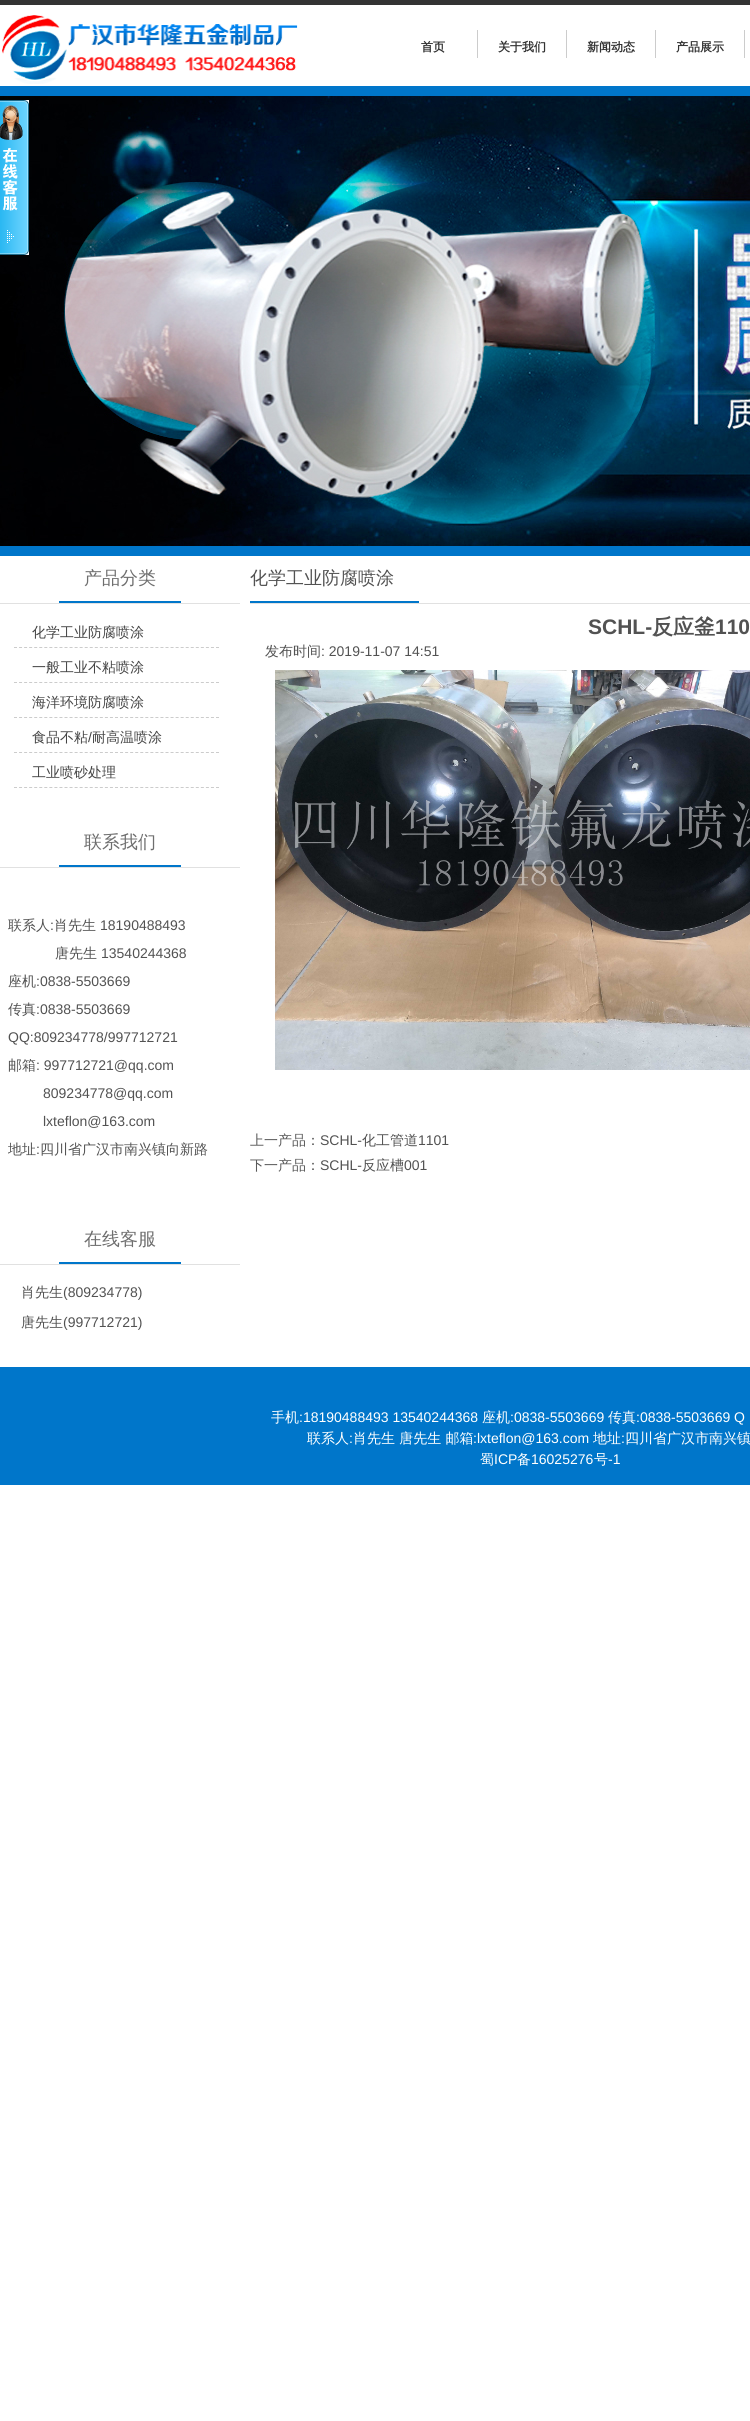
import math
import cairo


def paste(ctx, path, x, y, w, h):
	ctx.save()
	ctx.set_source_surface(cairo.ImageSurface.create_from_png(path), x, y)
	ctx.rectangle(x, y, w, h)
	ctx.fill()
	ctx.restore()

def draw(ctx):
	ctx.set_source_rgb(1, 1, 1)
	ctx.paint()
	ctx.set_source_rgb(0.2, 0.2, 0.2)
	ctx.rectangle(0, 0, 750, 5)
	ctx.fill()
	paste(ctx, 'media/1.png', 2, 15, 296, 69)
	ctx.select_font_face('WenQuanYi Zen Hei', cairo.FONT_SLANT_NORMAL, cairo.FONT_WEIGHT_BOLD)
	ctx.set_font_size(12)
	ctx.move_to(421, 51)
	ctx.show_text('首页')
	ctx.set_source_rgb(0.8, 0.8, 0.8)
	ctx.rectangle(477, 30, 1, 28)
	ctx.fill()
	ctx.set_source_rgb(0.2, 0.2, 0.2)
	ctx.move_to(498, 51)
	ctx.show_text('关于我们')
	ctx.set_source_rgb(0.8, 0.8, 0.8)
	ctx.rectangle(566, 30, 1, 28)
	ctx.fill()
	ctx.set_source_rgb(0.2, 0.2, 0.2)
	ctx.move_to(587, 51)
	ctx.show_text('新闻动态')
	ctx.set_source_rgb(0.8, 0.8, 0.8)
	ctx.rectangle(655, 30, 1, 28)
	ctx.fill()
	ctx.set_source_rgb(0.2, 0.2, 0.2)
	ctx.move_to(676, 51)
	ctx.show_text('产品展示')
	ctx.set_source_rgb(0.8, 0.8, 0.8)
	ctx.rectangle(744, 30, 1, 28)
	ctx.fill()
	ctx.set_source_rgb(0, 0.463, 0.792)
	ctx.rectangle(0, 86, 750, 470)
	ctx.fill()
	paste(ctx, 'media/2.png', 0, 96, 750, 450)
	ctx.set_source_rgb(0.882, 0.882, 0.882)
	ctx.rectangle(0, 603, 240, 1)
	ctx.fill()
	ctx.set_source_rgb(0, 0.463, 0.792)
	ctx.rectangle(59, 601, 122, 2)
	ctx.fill()
	ctx.select_font_face('WenQuanYi Zen Hei Medium')
	ctx.set_font_size(18)
	ctx.set_source_rgb(0.431, 0.431, 0.431)
	ctx.move_to(84, 584)
	ctx.show_text('产品分类')
	ctx.new_path()
	ctx.move_to(14, 647.5)
	ctx.line_to(219, 647.5)
	ctx.set_source_rgb(0.8, 0.8, 0.8)
	ctx.set_line_width(1)
	ctx.set_dash([3, 2.05])
	ctx.stroke()
	ctx.set_font_size(14)
	ctx.set_source_rgb(0.267, 0.267, 0.267)
	ctx.move_to(32, 637)
	ctx.show_text('化学工业防腐喷涂')
	ctx.new_path()
	ctx.move_to(14, 682.5)
	ctx.line_to(219, 682.5)
	ctx.set_source_rgb(0.8, 0.8, 0.8)
	ctx.stroke()
	ctx.set_source_rgb(0.267, 0.267, 0.267)
	ctx.move_to(32, 672)
	ctx.show_text('一般工业不粘喷涂')
	ctx.new_path()
	ctx.move_to(14, 717.5)
	ctx.line_to(219, 717.5)
	ctx.set_source_rgb(0.8, 0.8, 0.8)
	ctx.stroke()
	ctx.set_source_rgb(0.267, 0.267, 0.267)
	ctx.move_to(32, 707)
	ctx.show_text('海洋环境防腐喷涂')
	ctx.new_path()
	ctx.move_to(14, 752.5)
	ctx.line_to(219, 752.5)
	ctx.set_source_rgb(0.8, 0.8, 0.8)
	ctx.stroke()
	ctx.set_source_rgb(0.267, 0.267, 0.267)
	ctx.move_to(32, 742)
	ctx.show_text('食品不粘')
	ctx.select_font_face('Liberation Sans')
	ctx.move_to(88, 742)
	ctx.show_text('/')
	ctx.select_font_face('WenQuanYi Zen Hei Medium')
	ctx.move_to(92, 742)
	ctx.show_text('耐高温喷涂')
	ctx.new_path()
	ctx.move_to(14, 787.5)
	ctx.line_to(219, 787.5)
	ctx.set_source_rgb(0.8, 0.8, 0.8)
	ctx.stroke()
	ctx.set_source_rgb(0.267, 0.267, 0.267)
	ctx.move_to(32, 777)
	ctx.show_text('工业喷砂处理')
	ctx.set_source_rgb(0.882, 0.882, 0.882)
	ctx.rectangle(0, 867, 240, 1)
	ctx.fill()
	ctx.set_source_rgb(0, 0.463, 0.792)
	ctx.rectangle(59, 865, 122, 2)
	ctx.fill()
	ctx.set_font_size(18)
	ctx.set_source_rgb(0.431, 0.431, 0.431)
	ctx.move_to(84, 848)
	ctx.show_text('联系我们')
	ctx.set_font_size(14)
	ctx.set_source_rgb(0.322, 0.322, 0.322)
	ctx.move_to(8, 930)
	ctx.show_text('联系人')
	ctx.select_font_face('Liberation Sans')
	ctx.move_to(50, 930)
	ctx.show_text(':')
	ctx.select_font_face('WenQuanYi Zen Hei Medium')
	ctx.move_to(54, 930)
	ctx.show_text('肖先生')
	ctx.select_font_face('Liberation Sans')
	ctx.move_to(100, 930)
	ctx.show_text('18190488493')
	ctx.select_font_face('WenQuanYi Zen Hei Medium')
	ctx.move_to(55, 958)
	ctx.show_text('唐先生')
	ctx.select_font_face('Liberation Sans')
	ctx.move_to(101, 958)
	ctx.show_text('13540244368')
	ctx.select_font_face('WenQuanYi Zen Hei Medium')
	ctx.move_to(8, 986)
	ctx.show_text('座机')
	ctx.select_font_face('Liberation Sans')
	ctx.move_to(36, 986)
	ctx.show_text(':0838-5503669')
	ctx.select_font_face('WenQuanYi Zen Hei Medium')
	ctx.move_to(8, 1014)
	ctx.show_text('传真')
	ctx.select_font_face('Liberation Sans')
	ctx.move_to(36, 1014)
	ctx.show_text(':0838-5503669')
	ctx.move_to(8, 1042)
	ctx.show_text('QQ:809234778/997712721')
	ctx.select_font_face('WenQuanYi Zen Hei Medium')
	ctx.move_to(8, 1070)
	ctx.show_text('邮箱')
	ctx.select_font_face('Liberation Sans')
	for x, y, s in [
		(36, 1070, ': 997712721@qq.com'),
		(43, 1098, '809234778@qq.com'),
		(43, 1126, 'lxteflon@163.com'),
	]:
		ctx.move_to(x, y)
		ctx.show_text(s)
	ctx.select_font_face('WenQuanYi Zen Hei Medium')
	ctx.move_to(8, 1154)
	ctx.show_text('地址')
	ctx.select_font_face('Liberation Sans')
	ctx.move_to(36, 1154)
	ctx.show_text(':')
	ctx.select_font_face('WenQuanYi Zen Hei Medium')
	ctx.move_to(40, 1154)
	ctx.show_text('四川省广汉市南兴镇向新路')
	ctx.set_source_rgb(0.882, 0.882, 0.882)
	ctx.rectangle(0, 1264, 240, 1)
	ctx.fill()
	ctx.set_source_rgb(0, 0.463, 0.792)
	ctx.rectangle(59, 1262, 122, 2)
	ctx.fill()
	ctx.set_font_size(18)
	ctx.set_source_rgb(0.431, 0.431, 0.431)
	ctx.move_to(84, 1245)
	ctx.show_text('在线客服')
	ctx.set_font_size(14)
	ctx.set_source_rgb(0.322, 0.322, 0.322)
	ctx.move_to(21, 1297)
	ctx.show_text('肖先生')
	ctx.select_font_face('Liberation Sans')
	ctx.move_to(63, 1297)
	ctx.show_text('(809234778)')
	ctx.select_font_face('WenQuanYi Zen Hei Medium')
	ctx.move_to(21, 1327)
	ctx.show_text('唐先生')
	ctx.select_font_face('Liberation Sans')
	ctx.move_to(63, 1327)
	ctx.show_text('(997712721)')
	ctx.set_source_rgb(0.882, 0.882, 0.882)
	ctx.rectangle(250, 603, 500, 1)
	ctx.fill()
	ctx.set_source_rgb(0, 0.463, 0.792)
	ctx.rectangle(250, 601, 169, 2)
	ctx.fill()
	ctx.select_font_face('WenQuanYi Zen Hei Medium')
	ctx.set_font_size(18)
	ctx.set_source_rgb(0.322, 0.322, 0.322)
	ctx.move_to(250, 584)
	ctx.show_text('化学工业防腐喷涂')
	ctx.select_font_face('Liberation Sans', cairo.FONT_SLANT_NORMAL, cairo.FONT_WEIGHT_BOLD)
	ctx.set_font_size(21)
	ctx.move_to(588, 634)
	ctx.show_text('SCHL-')
	ctx.select_font_face('WenQuanYi Zen Hei', cairo.FONT_SLANT_NORMAL, cairo.FONT_WEIGHT_BOLD)
	ctx.move_to(652, 634)
	ctx.show_text('反应釜')
	ctx.select_font_face('Liberation Sans', cairo.FONT_SLANT_NORMAL, cairo.FONT_WEIGHT_BOLD)
	ctx.move_to(715, 634)
	ctx.show_text('110')
	ctx.select_font_face('WenQuanYi Zen Hei Medium')
	ctx.set_font_size(14)
	ctx.move_to(265, 656)
	ctx.show_text('发布时间')
	ctx.select_font_face('Liberation Sans')
	ctx.move_to(321, 656)
	ctx.show_text(': 2019-11-07 14:51')
	paste(ctx, 'media/3.png', 275, 670, 475, 400)
	ctx.select_font_face('WenQuanYi Zen Hei Medium')
	ctx.set_source_rgb(0.349, 0.349, 0.349)
	ctx.move_to(250, 1145)
	ctx.show_text('上一产品')
	ctx.set_source_rgb(0.322, 0.322, 0.322)
	ctx.move_to(306, 1145)
	ctx.show_text('：')
	ctx.select_font_face('Liberation Sans')
	ctx.move_to(320, 1145)
	ctx.show_text('SCHL-')
	ctx.select_font_face('WenQuanYi Zen Hei Medium')
	ctx.move_to(362, 1145)
	ctx.show_text('化工管道')
	ctx.select_font_face('Liberation Sans')
	ctx.move_to(418, 1145)
	ctx.show_text('1101')
	ctx.select_font_face('WenQuanYi Zen Hei Medium')
	ctx.set_source_rgb(0.349, 0.349, 0.349)
	ctx.move_to(250, 1170)
	ctx.show_text('下一产品')
	ctx.set_source_rgb(0.322, 0.322, 0.322)
	ctx.move_to(306, 1170)
	ctx.show_text('：')
	ctx.select_font_face('Liberation Sans')
	ctx.move_to(320, 1170)
	ctx.show_text('SCHL-')
	ctx.select_font_face('WenQuanYi Zen Hei Medium')
	ctx.move_to(362, 1170)
	ctx.show_text('反应槽')
	ctx.select_font_face('Liberation Sans')
	ctx.move_to(404, 1170)
	ctx.show_text('001')
	ctx.set_source_rgb(0, 0.463, 0.792)
	ctx.rectangle(0, 1367, 750, 118)
	ctx.fill()
	paste(ctx, 'media/4.png', 0, 100, 29, 155)
	ctx.select_font_face('WenQuanYi Zen Hei Medium')
	ctx.set_source_rgb(1, 1, 1)
	ctx.move_to(271, 1422)
	ctx.show_text('手机')
	ctx.select_font_face('Liberation Sans')
	ctx.move_to(299, 1422)
	ctx.show_text(':18190488493 13540244368')
	ctx.select_font_face('WenQuanYi Zen Hei Medium')
	ctx.move_to(482, 1422)
	ctx.show_text('座机')
	ctx.select_font_face('Liberation Sans')
	ctx.move_to(510, 1422)
	ctx.show_text(':0838-5503669')
	ctx.select_font_face('WenQuanYi Zen Hei Medium')
	ctx.move_to(608, 1422)
	ctx.show_text('传真')
	ctx.select_font_face('Liberation Sans')
	ctx.move_to(636, 1422)
	ctx.show_text(':0838-5503669 Q')
	ctx.select_font_face('WenQuanYi Zen Hei Medium')
	ctx.move_to(307, 1443)
	ctx.show_text('联系人')
	ctx.select_font_face('Liberation Sans')
	ctx.move_to(349, 1443)
	ctx.show_text(':')
	ctx.select_font_face('WenQuanYi Zen Hei Medium')
	ctx.move_to(353, 1443)
	ctx.show_text('肖先生 唐先生 邮箱')
	ctx.select_font_face('Liberation Sans')
	ctx.move_to(473, 1443)
	ctx.show_text(':lxteflon@163.com')
	ctx.select_font_face('WenQuanYi Zen Hei Medium')
	ctx.move_to(593, 1443)
	ctx.show_text('地址')
	ctx.select_font_face('Liberation Sans')
	ctx.move_to(621, 1443)
	ctx.show_text(':')
	ctx.select_font_face('WenQuanYi Zen Hei Medium')
	ctx.move_to(625, 1443)
	ctx.show_text('四川省广汉市南兴镇')
	ctx.move_to(480, 1464)
	ctx.show_text('蜀')
	ctx.select_font_face('Liberation Sans')
	ctx.move_to(494, 1464)
	ctx.show_text('ICP')
	ctx.select_font_face('WenQuanYi Zen Hei Medium')
	ctx.move_to(517, 1464)
	ctx.show_text('备')
	ctx.select_font_face('Liberation Sans')
	ctx.move_to(531, 1464)
	ctx.show_text('16025276')
	ctx.select_font_face('WenQuanYi Zen Hei Medium')
	ctx.move_to(594, 1464)
	ctx.show_text('号')
	ctx.select_font_face('Liberation Sans')
	ctx.move_to(608, 1464)
	ctx.show_text('-1')


surface = cairo.ImageSurface(cairo.FORMAT_RGB24, 750, 2421)
ctx = cairo.Context(surface)
options = cairo.FontOptions()
options.set_hint_metrics(cairo.HINT_METRICS_OFF)
options.set_hint_style(cairo.HINT_STYLE_NONE)
ctx.set_font_options(options)
ctx.set_miter_limit(4)
draw(ctx)
surface.write_to_png('image.png')
